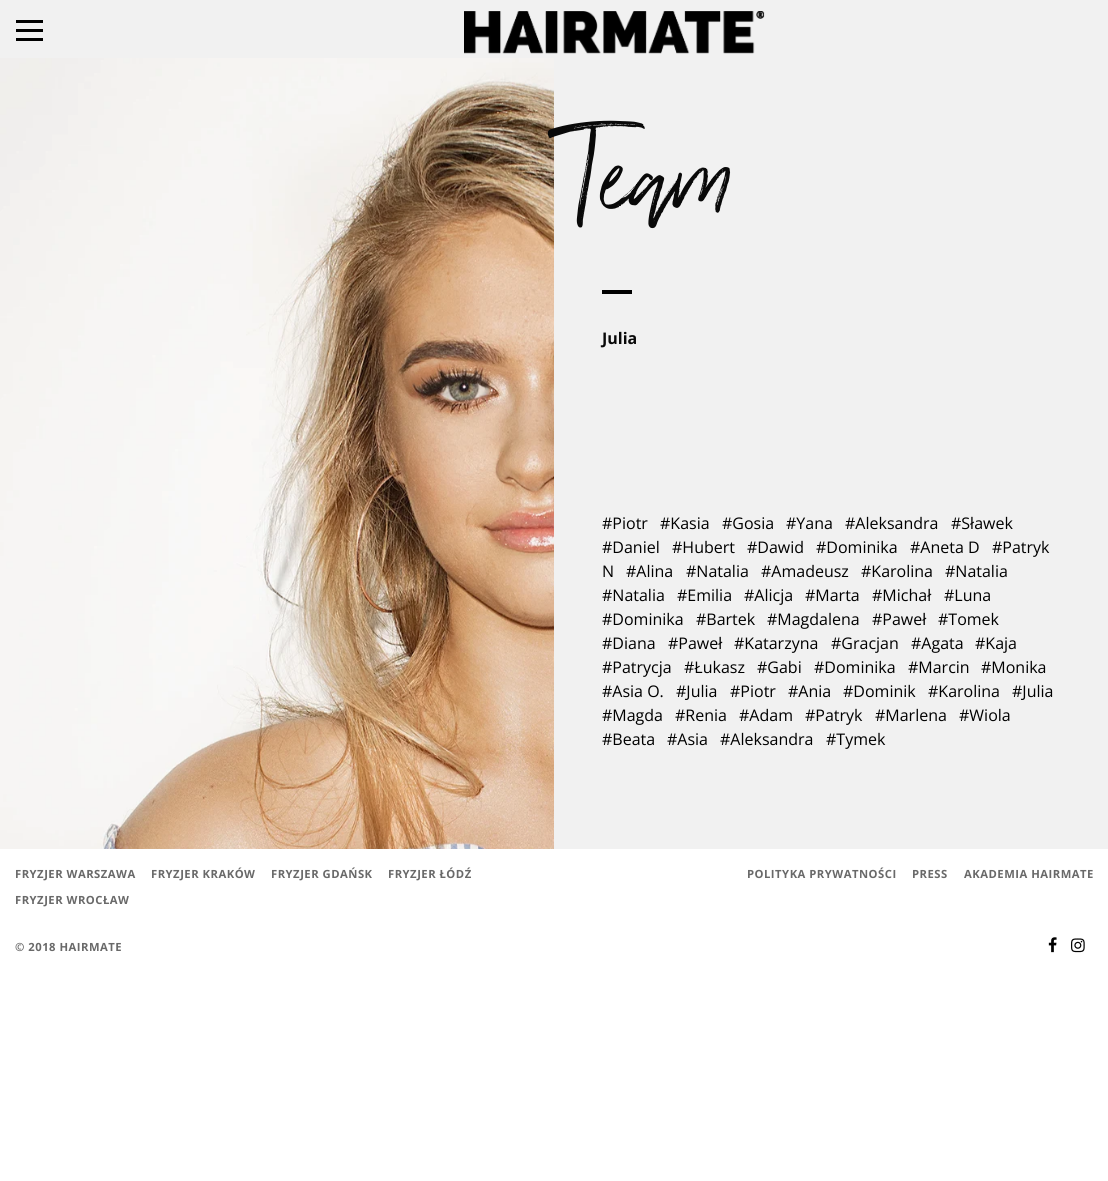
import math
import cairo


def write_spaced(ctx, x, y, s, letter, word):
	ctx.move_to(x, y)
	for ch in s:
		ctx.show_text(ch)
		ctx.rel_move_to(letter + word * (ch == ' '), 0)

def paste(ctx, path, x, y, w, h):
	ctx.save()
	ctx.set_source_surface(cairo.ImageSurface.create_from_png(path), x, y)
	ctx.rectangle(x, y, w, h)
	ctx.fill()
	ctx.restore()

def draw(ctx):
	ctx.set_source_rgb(1, 1, 1)
	ctx.paint()
	ctx.set_source_rgb(0.945, 0.945, 0.945)
	ctx.rectangle(0, 0, 1108, 58)
	ctx.fill()
	ctx.set_source_rgb(0, 0, 0)
	ctx.rectangle(16, 38, 27, 3)
	ctx.rectangle(16, 29, 27, 3)
	ctx.rectangle(16, 20, 27, 3)
	ctx.fill()
	paste(ctx, 'media/1.png', 464, 11, 301, 43)
	paste(ctx, 'media/2.png', 0, 58, 554, 791)
	ctx.set_source_rgb(0.945, 0.945, 0.945)
	ctx.rectangle(554, 58, 554, 791)
	ctx.fill()
	ctx.select_font_face('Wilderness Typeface')
	ctx.set_font_size(192)
	ctx.set_source_rgb(0.039, 0.039, 0.039)
	ctx.move_to(570, 206)
	ctx.show_text('Team')
	ctx.set_source_rgb(0, 0, 0)
	ctx.rectangle(602, 290, 30, 4)
	ctx.fill()
	ctx.select_font_face('Open Sans', cairo.FONT_SLANT_NORMAL, cairo.FONT_WEIGHT_BOLD)
	ctx.set_font_size(16)
	ctx.set_source_rgb(0.039, 0.039, 0.039)
	ctx.move_to(602, 344)
	ctx.show_text('Julia')
	ctx.select_font_face('Open Sans')
	ctx.set_source_rgb(0, 0, 0)
	for x, y, s in [
		(602, 529, '#Piotr'),
		(660, 529, '#Kasia'),
		(722, 529, '#Gosia'),
		(786, 529, '#Yana'),
		(845, 529, '#Aleksandra'),
		(951, 529, '#Sławek'),
		(602, 553, '#Daniel'),
		(672, 553, '#Hubert'),
		(747, 553, '#Dawid'),
		(816, 553, '#Dominika'),
		(910, 553, '#Aneta D'),
		(992, 553, '#Patryk'),
		(602, 577, 'N'),
		(626, 577, '#Alina'),
		(686, 577, '#Natalia'),
		(761, 577, '#Amadeusz'),
		(861, 577, '#Karolina'),
		(945, 577, '#Natalia'),
		(602, 601, '#Natalia'),
		(677, 601, '#Emilia'),
		(744, 601, '#Alicja'),
		(805, 601, '#Marta'),
		(872, 601, '#Michał'),
		(944, 601, '#Luna'),
		(602, 625, '#Dominika'),
		(696, 625, '#Bartek'),
		(767, 625, '#Magdalena'),
		(872, 625, '#Paweł'),
		(938, 625, '#Tomek'),
		(602, 649, '#Diana'),
		(668, 649, '#Paweł'),
		(734, 649, '#Katarzyna'),
		(831, 649, '#Gracjan'),
		(911, 649, '#Agata'),
		(975, 649, '#Kaja'),
		(602, 673, '#Patrycja'),
		(684, 673, '#Łukasz'),
		(757, 673, '#Gabi'),
		(814, 673, '#Dominika'),
		(908, 673, '#Marcin'),
		(981, 673, '#Monika'),
		(602, 697, '#Asia O.'),
		(676, 697, '#Julia'),
		(730, 697, '#Piotr'),
		(788, 697, '#Ania'),
		(843, 697, '#Dominik'),
		(928, 697, '#Karolina'),
		(1012, 697, '#Julia'),
		(602, 721, '#Magda'),
		(675, 721, '#Renia'),
		(739, 721, '#Adam'),
		(805, 721, '#Patryk'),
		(875, 721, '#Marlena'),
		(959, 721, '#Wiola'),
		(602, 745, '#Beata'),
		(667, 745, '#Asia'),
		(720, 745, '#Aleksandra'),
		(826, 745, '#Tymek'),
	]:
		ctx.move_to(x, y)
		ctx.show_text(s)
	ctx.select_font_face('Open Sans', cairo.FONT_SLANT_NORMAL, cairo.FONT_WEIGHT_BOLD)
	ctx.set_font_size(11.25)
	ctx.set_source_rgb(0.412, 0.412, 0.412)
	for x, y, s in [
		(15, 878, 'FRYZJER WARSZAWA'),
		(151, 878, 'FRYZJER KRAKÓW'),
		(271, 878, 'FRYZJER GDAŃSK'),
		(388, 878, 'FRYZJER ŁÓDŹ'),
		(15, 904, 'FRYZJER WROCŁAW'),
		(747, 878, 'POLITYKA PRYWATNOŚCI'),
		(912, 878, 'PRESS'),
		(964, 878, 'AKADEMIA HAIRMATE'),
		(15, 951, '© 2018 HAIRMATE'),
	]:
		write_spaced(ctx, x, y, s, 0.5, 0)
	paste(ctx, 'media/3.png', 1048, 937, 9, 16)
	paste(ctx, 'media/4.png', 1071, 938, 14, 15)


surface = cairo.ImageSurface(cairo.FORMAT_RGB24, 1108, 1181)
ctx = cairo.Context(surface)
options = cairo.FontOptions()
options.set_hint_metrics(cairo.HINT_METRICS_OFF)
options.set_hint_style(cairo.HINT_STYLE_NONE)
ctx.set_font_options(options)
ctx.set_miter_limit(4)
draw(ctx)
surface.write_to_png('image.png')
